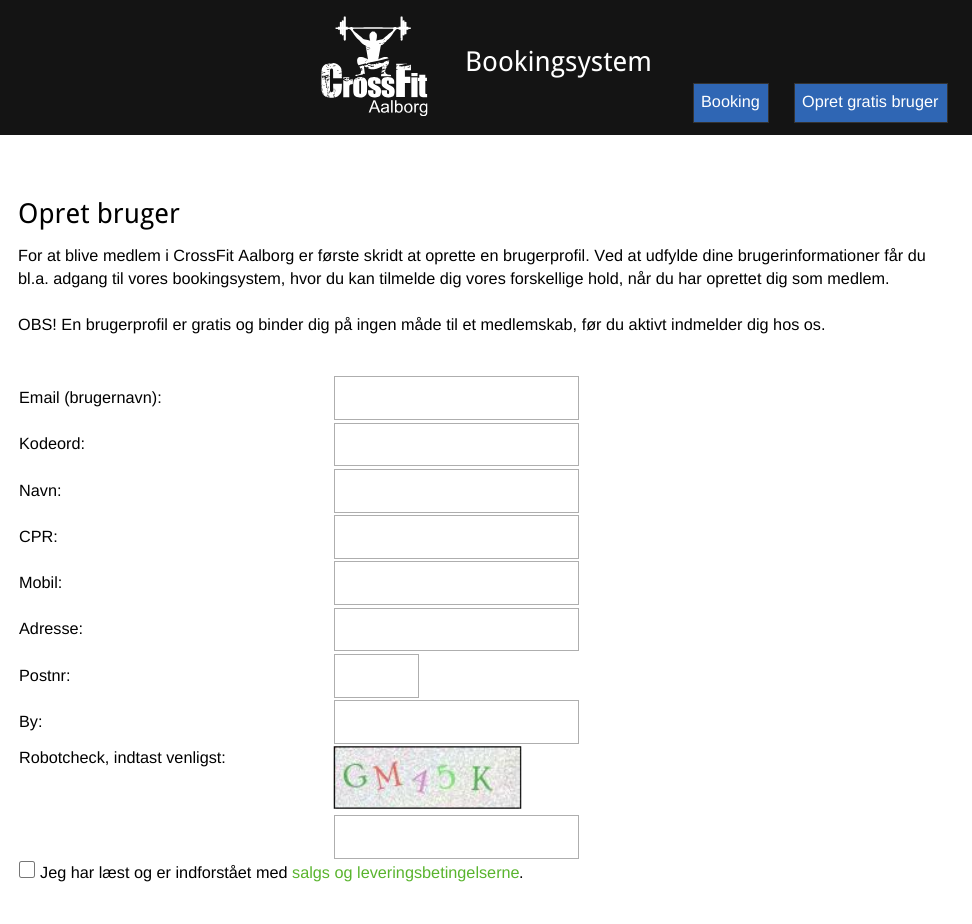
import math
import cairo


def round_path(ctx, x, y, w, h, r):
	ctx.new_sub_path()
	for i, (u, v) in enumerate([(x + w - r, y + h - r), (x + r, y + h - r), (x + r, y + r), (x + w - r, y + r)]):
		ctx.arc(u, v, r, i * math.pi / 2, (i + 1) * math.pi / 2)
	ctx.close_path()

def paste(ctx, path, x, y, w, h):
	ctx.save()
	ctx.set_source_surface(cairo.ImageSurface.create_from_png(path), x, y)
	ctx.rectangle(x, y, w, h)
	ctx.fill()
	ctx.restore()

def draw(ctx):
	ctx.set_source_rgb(1, 1, 1)
	ctx.paint()
	ctx.set_source_rgb(0.082, 0.082, 0.082)
	ctx.rectangle(0, 0, 972, 135)
	ctx.fill()
	paste(ctx, 'media/1.png', 321, 16, 107, 100)
	ctx.select_font_face('Droid Sans')
	ctx.set_font_size(27.5)
	ctx.set_source_rgb(1, 1, 1)
	ctx.move_to(465, 71)
	ctx.show_text('Bookingsystem')
	ctx.set_source_rgb(0.184, 0.4, 0.706)
	ctx.rectangle(693.5, 83.5, 75, 39)
	ctx.fill_preserve()
	ctx.set_source_rgb(0.2, 0.2, 0.2)
	ctx.set_line_width(1)
	ctx.stroke()
	ctx.select_font_face('Liberation Sans')
	ctx.set_font_size(16.25)
	ctx.set_source_rgb(1, 1, 1)
	ctx.move_to(701, 107)
	ctx.show_text('Booking')
	ctx.set_source_rgb(0.184, 0.4, 0.706)
	ctx.rectangle(794.5, 83.5, 153, 39)
	ctx.fill_preserve()
	ctx.set_source_rgb(0.2, 0.2, 0.2)
	ctx.stroke()
	ctx.set_source_rgb(1, 1, 1)
	ctx.move_to(802, 107)
	ctx.show_text('Opret gratis bruger')
	ctx.select_font_face('Droid Sans')
	ctx.set_font_size(27.5)
	ctx.set_source_rgb(0, 0, 0)
	ctx.move_to(18, 223)
	ctx.show_text('Opret bruger')
	ctx.select_font_face('Liberation Sans')
	ctx.set_font_size(16.25)
	for x, y, s in [
		(18, 261, 'For at blive medlem i CrossFit Aalborg er første skridt at oprette en brugerprofil. Ved at udfylde dine brugerinformationer får du'),
		(18, 284, 'bl.a. adgang til vores bookingsystem, hvor du kan tilmelde dig vores forskellige hold, når du har oprettet dig som medlem.'),
		(18, 330, 'OBS! En brugerprofil er gratis og binder dig på ingen måde til et medlemskab, før du aktivt indmelder dig hos os.'),
		(19, 403, 'Email (brugernavn):'),
	]:
		ctx.move_to(x, y)
		ctx.show_text(s)
	ctx.rectangle(334.5, 376.5, 244, 43)
	ctx.set_source_rgb(0.682, 0.682, 0.682)
	ctx.stroke()
	ctx.set_source_rgb(0, 0, 0)
	ctx.move_to(19, 449)
	ctx.show_text('Kodeord:')
	ctx.rectangle(334.5, 423.5, 244, 42)
	ctx.set_source_rgb(0.682, 0.682, 0.682)
	ctx.stroke()
	ctx.set_source_rgb(0, 0, 0)
	ctx.move_to(19, 496)
	ctx.show_text('Navn:')
	ctx.rectangle(334.5, 469.5, 244, 43)
	ctx.set_source_rgb(0.682, 0.682, 0.682)
	ctx.stroke()
	ctx.set_source_rgb(0, 0, 0)
	ctx.move_to(19, 542)
	ctx.show_text('CPR:')
	ctx.rectangle(334.5, 515.5, 244, 43)
	ctx.set_source_rgb(0.682, 0.682, 0.682)
	ctx.stroke()
	ctx.set_source_rgb(0, 0, 0)
	ctx.move_to(19, 588)
	ctx.show_text('Mobil:')
	ctx.rectangle(334.5, 561.5, 244, 43)
	ctx.set_source_rgb(0.682, 0.682, 0.682)
	ctx.stroke()
	ctx.set_source_rgb(0, 0, 0)
	ctx.move_to(19, 634)
	ctx.show_text('Adresse:')
	ctx.rectangle(334.5, 608.5, 244, 42)
	ctx.set_source_rgb(0.682, 0.682, 0.682)
	ctx.stroke()
	ctx.set_source_rgb(0, 0, 0)
	ctx.move_to(19, 681)
	ctx.show_text('Postnr:')
	ctx.rectangle(334.5, 654.5, 84, 43)
	ctx.set_source_rgb(0.682, 0.682, 0.682)
	ctx.stroke()
	ctx.set_source_rgb(0, 0, 0)
	ctx.move_to(19, 727)
	ctx.show_text('By:')
	ctx.rectangle(334.5, 700.5, 244, 43)
	ctx.set_source_rgb(0.682, 0.682, 0.682)
	ctx.stroke()
	ctx.set_source_rgb(0, 0, 0)
	ctx.move_to(19, 763)
	ctx.show_text('Robotcheck, indtast venligst:')
	paste(ctx, 'media/2.png', 333, 746, 189, 63)
	ctx.rectangle(334.5, 815.5, 244, 43)
	ctx.set_source_rgb(0.682, 0.682, 0.682)
	ctx.stroke()
	round_path(ctx, 19.5, 861.5, 15, 16, 2)
	ctx.set_source_rgb(0.463, 0.463, 0.463)
	ctx.stroke()
	ctx.set_source_rgb(0, 0, 0)
	ctx.move_to(40, 878)
	ctx.show_text('Jeg har læst og er indforstået med')
	ctx.set_source_rgb(0.349, 0.706, 0.176)
	ctx.move_to(292, 878)
	ctx.show_text('salgs og leveringsbetingelserne')
	ctx.set_source_rgb(0, 0, 0)
	ctx.move_to(519, 878)
	ctx.show_text('.')


surface = cairo.ImageSurface(cairo.FORMAT_RGB24, 972, 924)
ctx = cairo.Context(surface)
options = cairo.FontOptions()
options.set_hint_metrics(cairo.HINT_METRICS_OFF)
options.set_hint_style(cairo.HINT_STYLE_NONE)
ctx.set_font_options(options)
ctx.set_miter_limit(4)
draw(ctx)
surface.write_to_png('image.png')
